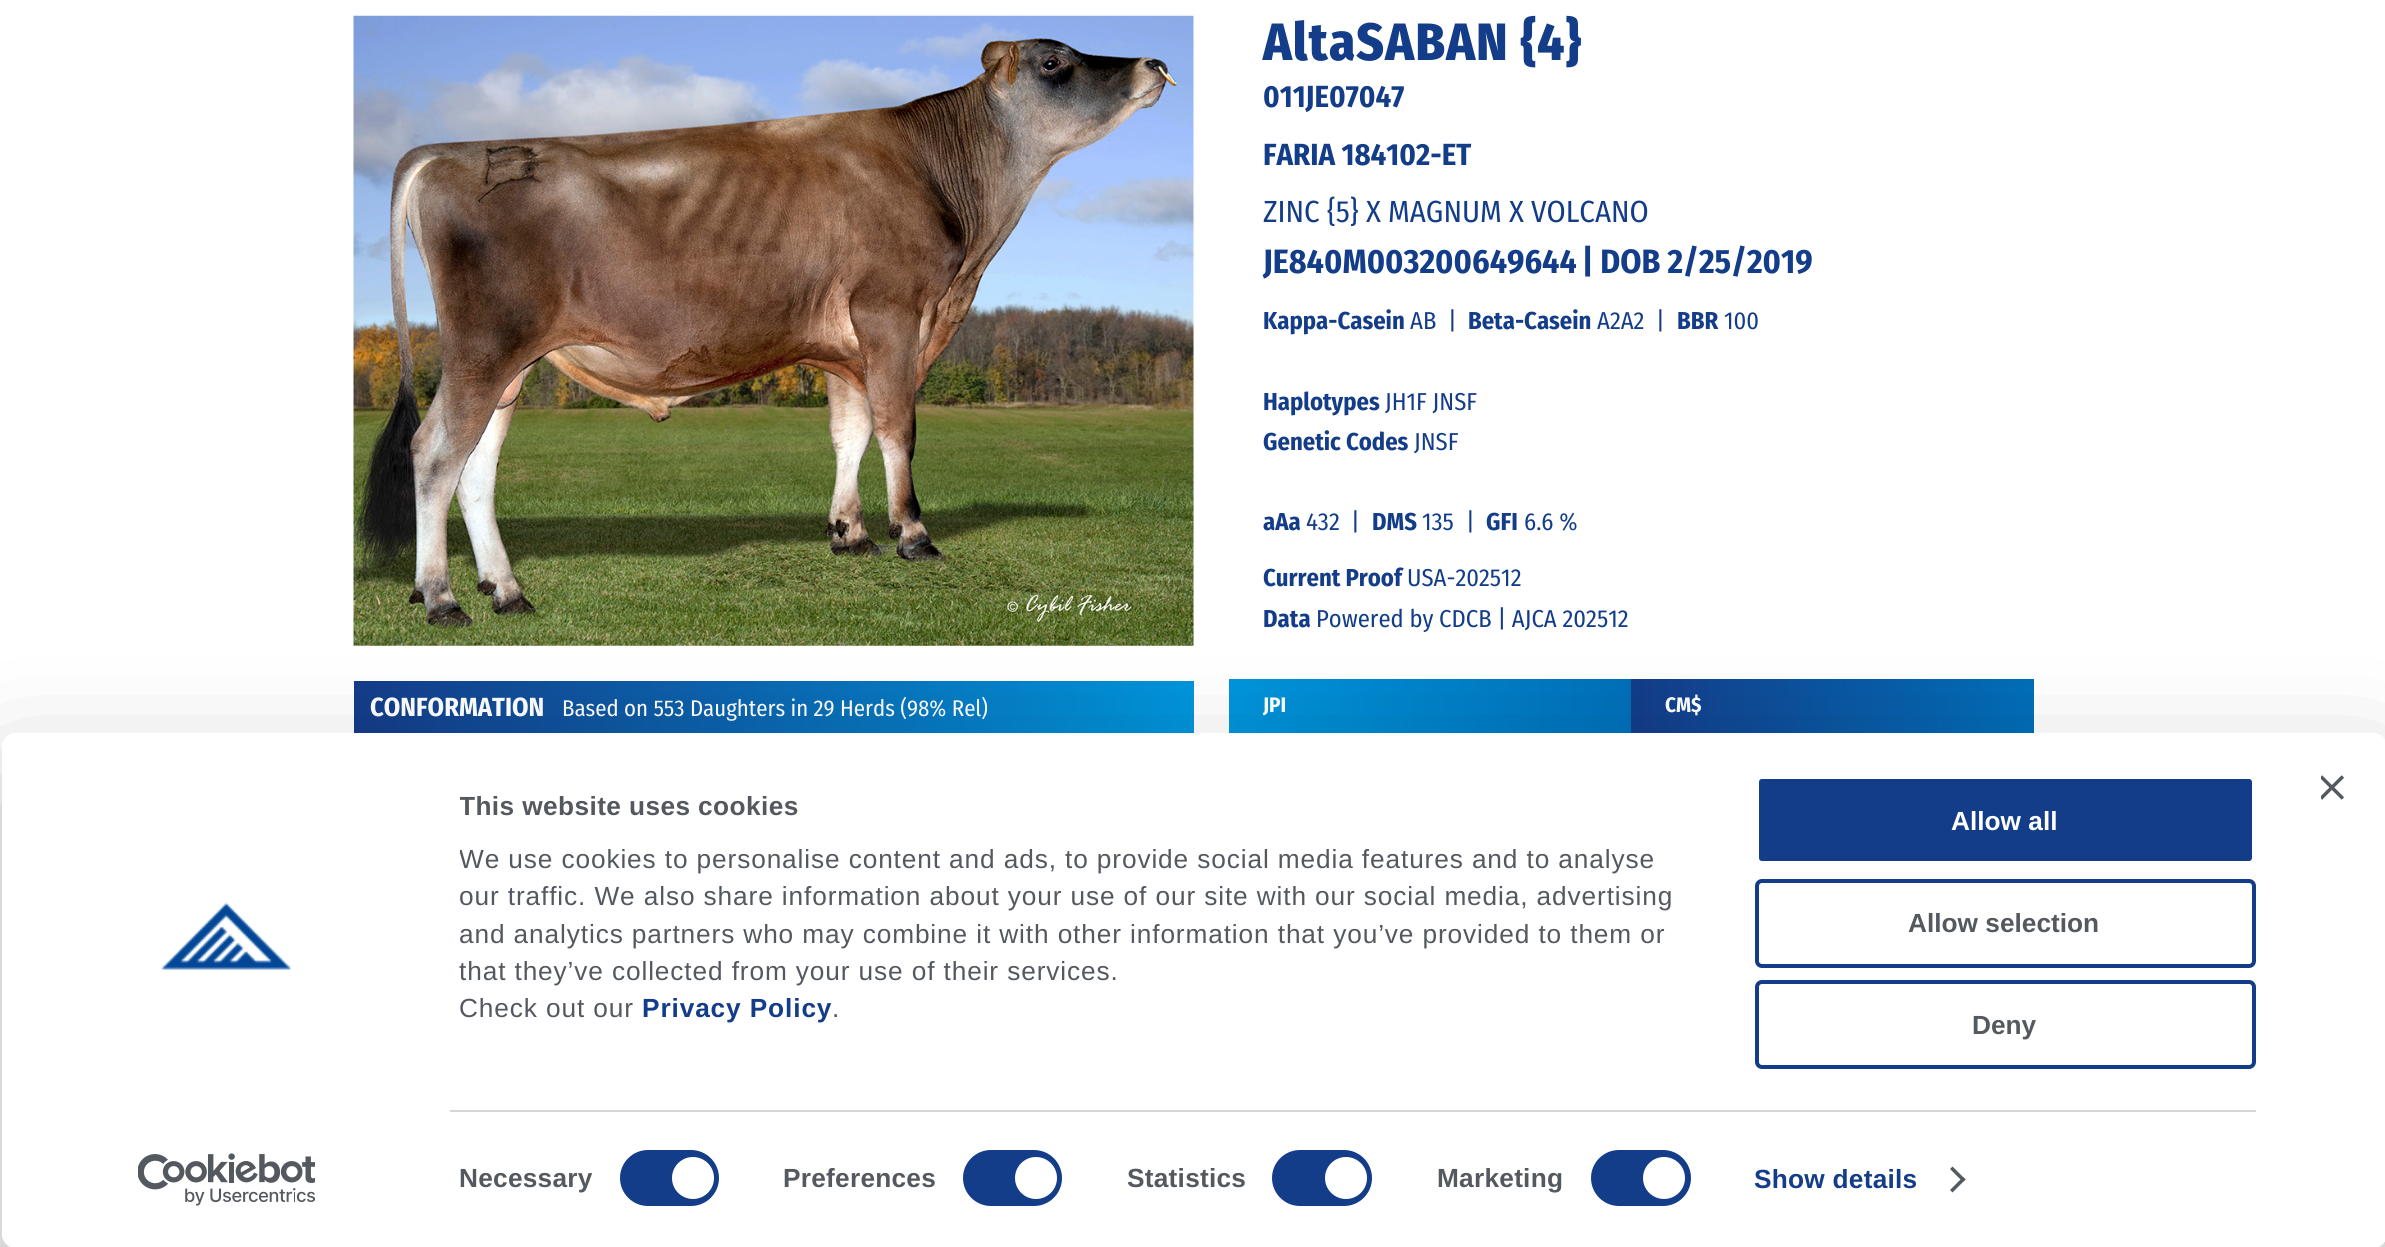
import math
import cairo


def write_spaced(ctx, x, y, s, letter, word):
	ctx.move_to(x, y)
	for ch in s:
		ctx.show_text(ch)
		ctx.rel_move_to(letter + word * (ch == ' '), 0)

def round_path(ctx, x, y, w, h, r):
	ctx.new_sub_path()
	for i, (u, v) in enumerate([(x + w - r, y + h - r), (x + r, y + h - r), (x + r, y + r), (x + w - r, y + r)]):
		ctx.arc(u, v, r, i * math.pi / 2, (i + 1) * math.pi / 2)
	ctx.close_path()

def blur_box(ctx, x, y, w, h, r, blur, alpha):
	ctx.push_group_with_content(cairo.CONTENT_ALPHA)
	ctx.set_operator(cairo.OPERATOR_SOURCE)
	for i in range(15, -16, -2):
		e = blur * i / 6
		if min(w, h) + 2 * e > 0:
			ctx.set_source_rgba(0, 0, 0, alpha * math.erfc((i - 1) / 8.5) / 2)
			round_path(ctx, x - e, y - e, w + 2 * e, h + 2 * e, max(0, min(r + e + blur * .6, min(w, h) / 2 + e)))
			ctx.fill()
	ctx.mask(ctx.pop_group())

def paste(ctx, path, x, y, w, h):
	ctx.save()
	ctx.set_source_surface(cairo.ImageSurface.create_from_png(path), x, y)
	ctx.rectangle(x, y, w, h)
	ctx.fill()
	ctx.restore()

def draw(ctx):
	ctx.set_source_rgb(1, 1, 1)
	ctx.paint()
	paste(ctx, 'media/1.png', 353, 15, 841, 631)
	gradient = cairo.LinearGradient(354, 708, 1194, 708)
	gradient.add_color_stop_rgba(0, 0.078, 0.235, 0.537, 1)
	gradient.add_color_stop_rgba(1, 0, 0.584, 0.859, 1)
	ctx.set_source(gradient)
	ctx.rectangle(354, 681, 840, 52)
	ctx.fill()
	ctx.select_font_face('Fira Sans Condensed', cairo.FONT_SLANT_NORMAL, cairo.FONT_WEIGHT_BOLD)
	ctx.set_font_size(26.25)
	ctx.set_source_rgb(1, 1, 1)
	ctx.move_to(370, 716)
	ctx.show_text('CONFORMATION')
	ctx.select_font_face('Fira Sans Condensed')
	ctx.set_font_size(22.75)
	ctx.move_to(562, 716)
	ctx.show_text('Based on 553 Daughters in 29 Herds (98% Rel)')
	ctx.select_font_face('Fira Sans Condensed ExtraBold')
	ctx.set_font_size(52.5)
	ctx.set_source_rgb(0.078, 0.235, 0.537)
	write_spaced(ctx, 1263, 60, 'AltaSABAN {4}', 1.25, 0)
	ctx.select_font_face('Fira Sans Condensed', cairo.FONT_SLANT_NORMAL, cairo.FONT_WEIGHT_BOLD)
	ctx.set_font_size(30.6)
	ctx.move_to(1263, 107)
	ctx.show_text('011JE07047')
	ctx.move_to(1263, 165)
	ctx.show_text('FARIA 184102-ET')
	ctx.select_font_face('Fira Sans Condensed')
	ctx.move_to(1263, 222)
	ctx.show_text('ZINC {5} X MAGNUM X VOLCANO')
	ctx.select_font_face('Fira Sans Condensed', cairo.FONT_SLANT_NORMAL, cairo.FONT_WEIGHT_BOLD)
	ctx.set_font_size(33.75)
	ctx.move_to(1263, 273)
	ctx.show_text('JE840M003200649644')
	ctx.move_to(1582, 273)
	ctx.show_text('| DOB 2/25/2019')
	ctx.set_font_size(24.5)
	ctx.move_to(1263, 329)
	ctx.show_text('Kappa-Casein')
	ctx.select_font_face('Fira Sans Condensed')
	ctx.move_to(1410, 329)
	ctx.show_text('AB')
	ctx.move_to(1448, 329)
	ctx.show_text('|')
	ctx.select_font_face('Fira Sans Condensed', cairo.FONT_SLANT_NORMAL, cairo.FONT_WEIGHT_BOLD)
	ctx.move_to(1468, 329)
	ctx.show_text('Beta-Casein')
	ctx.select_font_face('Fira Sans Condensed')
	ctx.move_to(1597, 329)
	ctx.show_text('A2A2')
	ctx.move_to(1656, 329)
	ctx.show_text('|')
	ctx.select_font_face('Fira Sans Condensed', cairo.FONT_SLANT_NORMAL, cairo.FONT_WEIGHT_BOLD)
	ctx.move_to(1677, 329)
	ctx.show_text('BBR')
	ctx.select_font_face('Fira Sans Condensed')
	ctx.move_to(1724, 329)
	ctx.show_text('100')
	ctx.select_font_face('Fira Sans Condensed', cairo.FONT_SLANT_NORMAL, cairo.FONT_WEIGHT_BOLD)
	ctx.move_to(1263, 410)
	ctx.show_text('Haplotypes')
	ctx.select_font_face('Fira Sans Condensed')
	ctx.move_to(1385, 410)
	ctx.show_text('JH1F JNSF')
	ctx.select_font_face('Fira Sans Condensed', cairo.FONT_SLANT_NORMAL, cairo.FONT_WEIGHT_BOLD)
	ctx.move_to(1263, 450)
	ctx.show_text('Genetic Codes')
	ctx.select_font_face('Fira Sans Condensed')
	ctx.move_to(1414, 450)
	ctx.show_text('JNSF')
	ctx.select_font_face('Fira Sans Condensed', cairo.FONT_SLANT_NORMAL, cairo.FONT_WEIGHT_BOLD)
	ctx.move_to(1263, 530)
	ctx.show_text('aAa')
	ctx.select_font_face('Fira Sans Condensed')
	ctx.move_to(1306, 530)
	ctx.show_text('432')
	ctx.move_to(1351, 530)
	ctx.show_text('|')
	ctx.select_font_face('Fira Sans Condensed', cairo.FONT_SLANT_NORMAL, cairo.FONT_WEIGHT_BOLD)
	ctx.move_to(1372, 530)
	ctx.show_text('DMS')
	ctx.select_font_face('Fira Sans Condensed')
	ctx.move_to(1422, 530)
	ctx.show_text('135')
	ctx.move_to(1466, 530)
	ctx.show_text('|')
	ctx.select_font_face('Fira Sans Condensed', cairo.FONT_SLANT_NORMAL, cairo.FONT_WEIGHT_BOLD)
	ctx.move_to(1486, 530)
	ctx.show_text('GFI')
	ctx.select_font_face('Fira Sans Condensed')
	ctx.move_to(1524, 530)
	ctx.show_text('6.6 %')
	ctx.select_font_face('Fira Sans Condensed', cairo.FONT_SLANT_NORMAL, cairo.FONT_WEIGHT_BOLD)
	ctx.move_to(1263, 586)
	ctx.show_text('Current Proof')
	ctx.select_font_face('Fira Sans Condensed')
	ctx.move_to(1407, 586)
	ctx.show_text('USA-202512')
	ctx.select_font_face('Fira Sans Condensed', cairo.FONT_SLANT_NORMAL, cairo.FONT_WEIGHT_BOLD)
	ctx.move_to(1263, 627)
	ctx.show_text('Data')
	ctx.select_font_face('Fira Sans Condensed')
	ctx.move_to(1316, 627)
	ctx.show_text('Powered by CDCB | AJCA 202512')
	gradient = cairo.LinearGradient(1229, 737, 1631, 737)
	gradient.add_color_stop_rgba(0, 0, 0.584, 0.859, 1)
	gradient.add_color_stop_rgba(1, 0, 0.435, 0.725, 1)
	ctx.set_source(gradient)
	ctx.rectangle(1229, 679, 402, 54)
	ctx.fill()
	ctx.select_font_face('Fira Sans Condensed', cairo.FONT_SLANT_NORMAL, cairo.FONT_WEIGHT_BOLD)
	ctx.set_font_size(21)
	ctx.set_source_rgb(1, 1, 1)
	ctx.move_to(1263, 712)
	ctx.show_text('JPI')
	gradient = cairo.LinearGradient(1631, 737, 2034, 737)
	gradient.add_color_stop_rgba(0, 0.078, 0.235, 0.537, 1)
	gradient.add_color_stop_rgba(1, 0, 0.435, 0.725, 1)
	ctx.set_source(gradient)
	ctx.rectangle(1631, 679, 403, 54)
	ctx.fill()
	ctx.set_source_rgb(1, 1, 1)
	ctx.move_to(1665, 712)
	ctx.show_text('CM$')
	ctx.save()
	ctx.set_fill_rule(cairo.FILL_RULE_EVEN_ODD)
	ctx.new_path()
	ctx.move_to(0, 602)
	ctx.line_to(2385, 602)
	ctx.line_to(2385, 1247)
	ctx.line_to(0, 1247)
	ctx.close_path()
	ctx.move_to(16, 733)
	ctx.line_to(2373, 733)
	ctx.curve_to(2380.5, 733, 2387, 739.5, 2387, 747)
	ctx.line_to(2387, 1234)
	ctx.curve_to(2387, 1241.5, 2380.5, 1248, 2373, 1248)
	ctx.line_to(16, 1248)
	ctx.curve_to(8.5, 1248, 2, 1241.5, 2, 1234)
	ctx.line_to(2, 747)
	ctx.curve_to(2, 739.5, 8.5, 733, 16, 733)
	ctx.close_path()
	ctx.clip()
	ctx.set_source_rgb(0, 0, 0)
	blur_box(ctx, 2, 786, 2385, 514, 14, 61, 0.3)
	ctx.restore()
	round_path(ctx, 2, 733, 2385, 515, 14)
	ctx.fill()
	paste(ctx, 'media/2.png', 2321, 775, 23, 25)
	paste(ctx, 'media/3.png', 161, 902, 131, 68)
	paste(ctx, 'media/4.png', 138, 1153, 177, 53)
	ctx.save()
	ctx.rectangle(460, 786, 1245, 273)
	ctx.clip()
	ctx.select_font_face('Liberation Sans', cairo.FONT_SLANT_NORMAL, cairo.FONT_WEIGHT_BOLD)
	ctx.set_font_size(26.25)
	ctx.set_source_rgb(0.329, 0.349, 0.373)
	write_spaced(ctx, 459, 815, 'This website uses cookies', 0.4, 0)
	ctx.select_font_face('Liberation Sans')
	write_spaced(ctx, 459, 868, 'We use cookies to personalise content and ads, to provide social media features and to analyse', 0.88, 0)
	write_spaced(ctx, 459, 905, 'our traffic. We also share information about your use of our site with our social media, advertising', 0.88, 0)
	ctx.restore()
	ctx.select_font_face('Liberation Sans')
	ctx.set_font_size(26.25)
	ctx.set_source_rgb(0.329, 0.349, 0.373)
	for x, y, s in [
		(459, 943, 'and analytics partners who may combine it with other information that you’ve provided to them or'),
		(459, 980, 'that they’ve collected from your use of their services.'),
		(459, 1017, 'Check out our'),
	]:
		write_spaced(ctx, x, y, s, 0.88, 0)
	ctx.select_font_face('Liberation Sans', cairo.FONT_SLANT_NORMAL, cairo.FONT_WEIGHT_BOLD)
	ctx.set_source_rgb(0.078, 0.235, 0.537)
	write_spaced(ctx, 642, 1017, 'Privacy Policy', 0.88, 0)
	ctx.select_font_face('Liberation Sans')
	ctx.set_source_rgb(0.329, 0.349, 0.373)
	write_spaced(ctx, 832, 1017, '.', 0.88, 0)
	ctx.set_source_rgb(0.839, 0.839, 0.839)
	ctx.rectangle(450, 1110, 1806, 2)
	ctx.fill()
	ctx.select_font_face('Liberation Sans', cairo.FONT_SLANT_NORMAL, cairo.FONT_WEIGHT_BOLD)
	ctx.set_source_rgb(0.329, 0.349, 0.373)
	write_spaced(ctx, 459, 1187, 'Necessary', 0.25, 0)
	ctx.set_source_rgb(0.078, 0.235, 0.537)
	round_path(ctx, 620, 1150, 99, 56, 28)
	ctx.fill()
	ctx.set_source_rgb(1, 1, 1)
	ctx.arc(693, 1178, 21, 0, 2 * math.pi)
	ctx.fill()
	ctx.set_source_rgb(0.329, 0.349, 0.373)
	write_spaced(ctx, 783, 1187, 'Preferences', 0.25, 0)
	ctx.set_source_rgb(0.078, 0.235, 0.537)
	round_path(ctx, 963, 1150, 99, 56, 28)
	ctx.fill()
	ctx.set_source_rgb(1, 1, 1)
	ctx.arc(1036, 1178, 21, 0, 2 * math.pi)
	ctx.fill()
	ctx.set_source_rgb(0.329, 0.349, 0.373)
	write_spaced(ctx, 1127, 1187, 'Statistics', 0.25, 0)
	ctx.set_source_rgb(0.078, 0.235, 0.537)
	round_path(ctx, 1272, 1150, 100, 56, 28)
	ctx.fill()
	ctx.set_source_rgb(1, 1, 1)
	ctx.arc(1346, 1178, 21, 0, 2 * math.pi)
	ctx.fill()
	ctx.set_source_rgb(0.329, 0.349, 0.373)
	write_spaced(ctx, 1437, 1187, 'Marketing', 0.25, 0)
	ctx.set_source_rgb(0.078, 0.235, 0.537)
	round_path(ctx, 1591, 1150, 100, 56, 28)
	ctx.fill()
	ctx.set_source_rgb(1, 1, 1)
	ctx.arc(1664, 1178, 21, 0, 2 * math.pi)
	ctx.fill()
	ctx.set_source_rgb(0.078, 0.235, 0.537)
	write_spaced(ctx, 1754, 1188, 'Show details', 0.25, 0)
	ctx.set_source_rgb(0.329, 0.349, 0.373)
	ctx.new_path()
	ctx.move_to(1952.5, 1166.5)
	ctx.line_to(1965.5, 1179.5)
	ctx.line_to(1963, 1182)
	ctx.line_to(1950, 1169)
	ctx.close_path()
	ctx.fill()
	ctx.new_path()
	ctx.move_to(1963, 1177)
	ctx.line_to(1965.5, 1179.5)
	ctx.line_to(1952.5, 1192.5)
	ctx.line_to(1950, 1190)
	ctx.close_path()
	ctx.fill()
	ctx.set_source_rgb(0.078, 0.235, 0.537)
	round_path(ctx, 1757, 777, 497, 86, 5)
	ctx.fill_preserve()
	ctx.set_source_rgb(1, 1, 1)
	ctx.set_line_width(4)
	ctx.stroke()
	ctx.move_to(1951, 830)
	ctx.show_text('Allow all')
	round_path(ctx, 1757, 881, 497, 85, 5)
	ctx.set_source_rgb(0.078, 0.235, 0.537)
	ctx.stroke()
	ctx.set_source_rgb(0.329, 0.349, 0.373)
	ctx.move_to(1908, 932)
	ctx.show_text('Allow selection')
	round_path(ctx, 1757, 982, 497, 85, 5)
	ctx.set_source_rgb(0.078, 0.235, 0.537)
	ctx.stroke()
	ctx.set_source_rgb(0.329, 0.349, 0.373)
	ctx.move_to(1972, 1034)
	ctx.show_text('Deny')


surface = cairo.ImageSurface(cairo.FORMAT_RGB24, 2385, 1247)
ctx = cairo.Context(surface)
options = cairo.FontOptions()
options.set_hint_metrics(cairo.HINT_METRICS_OFF)
options.set_hint_style(cairo.HINT_STYLE_NONE)
ctx.set_font_options(options)
ctx.set_miter_limit(4)
draw(ctx)
surface.write_to_png('image.png')
